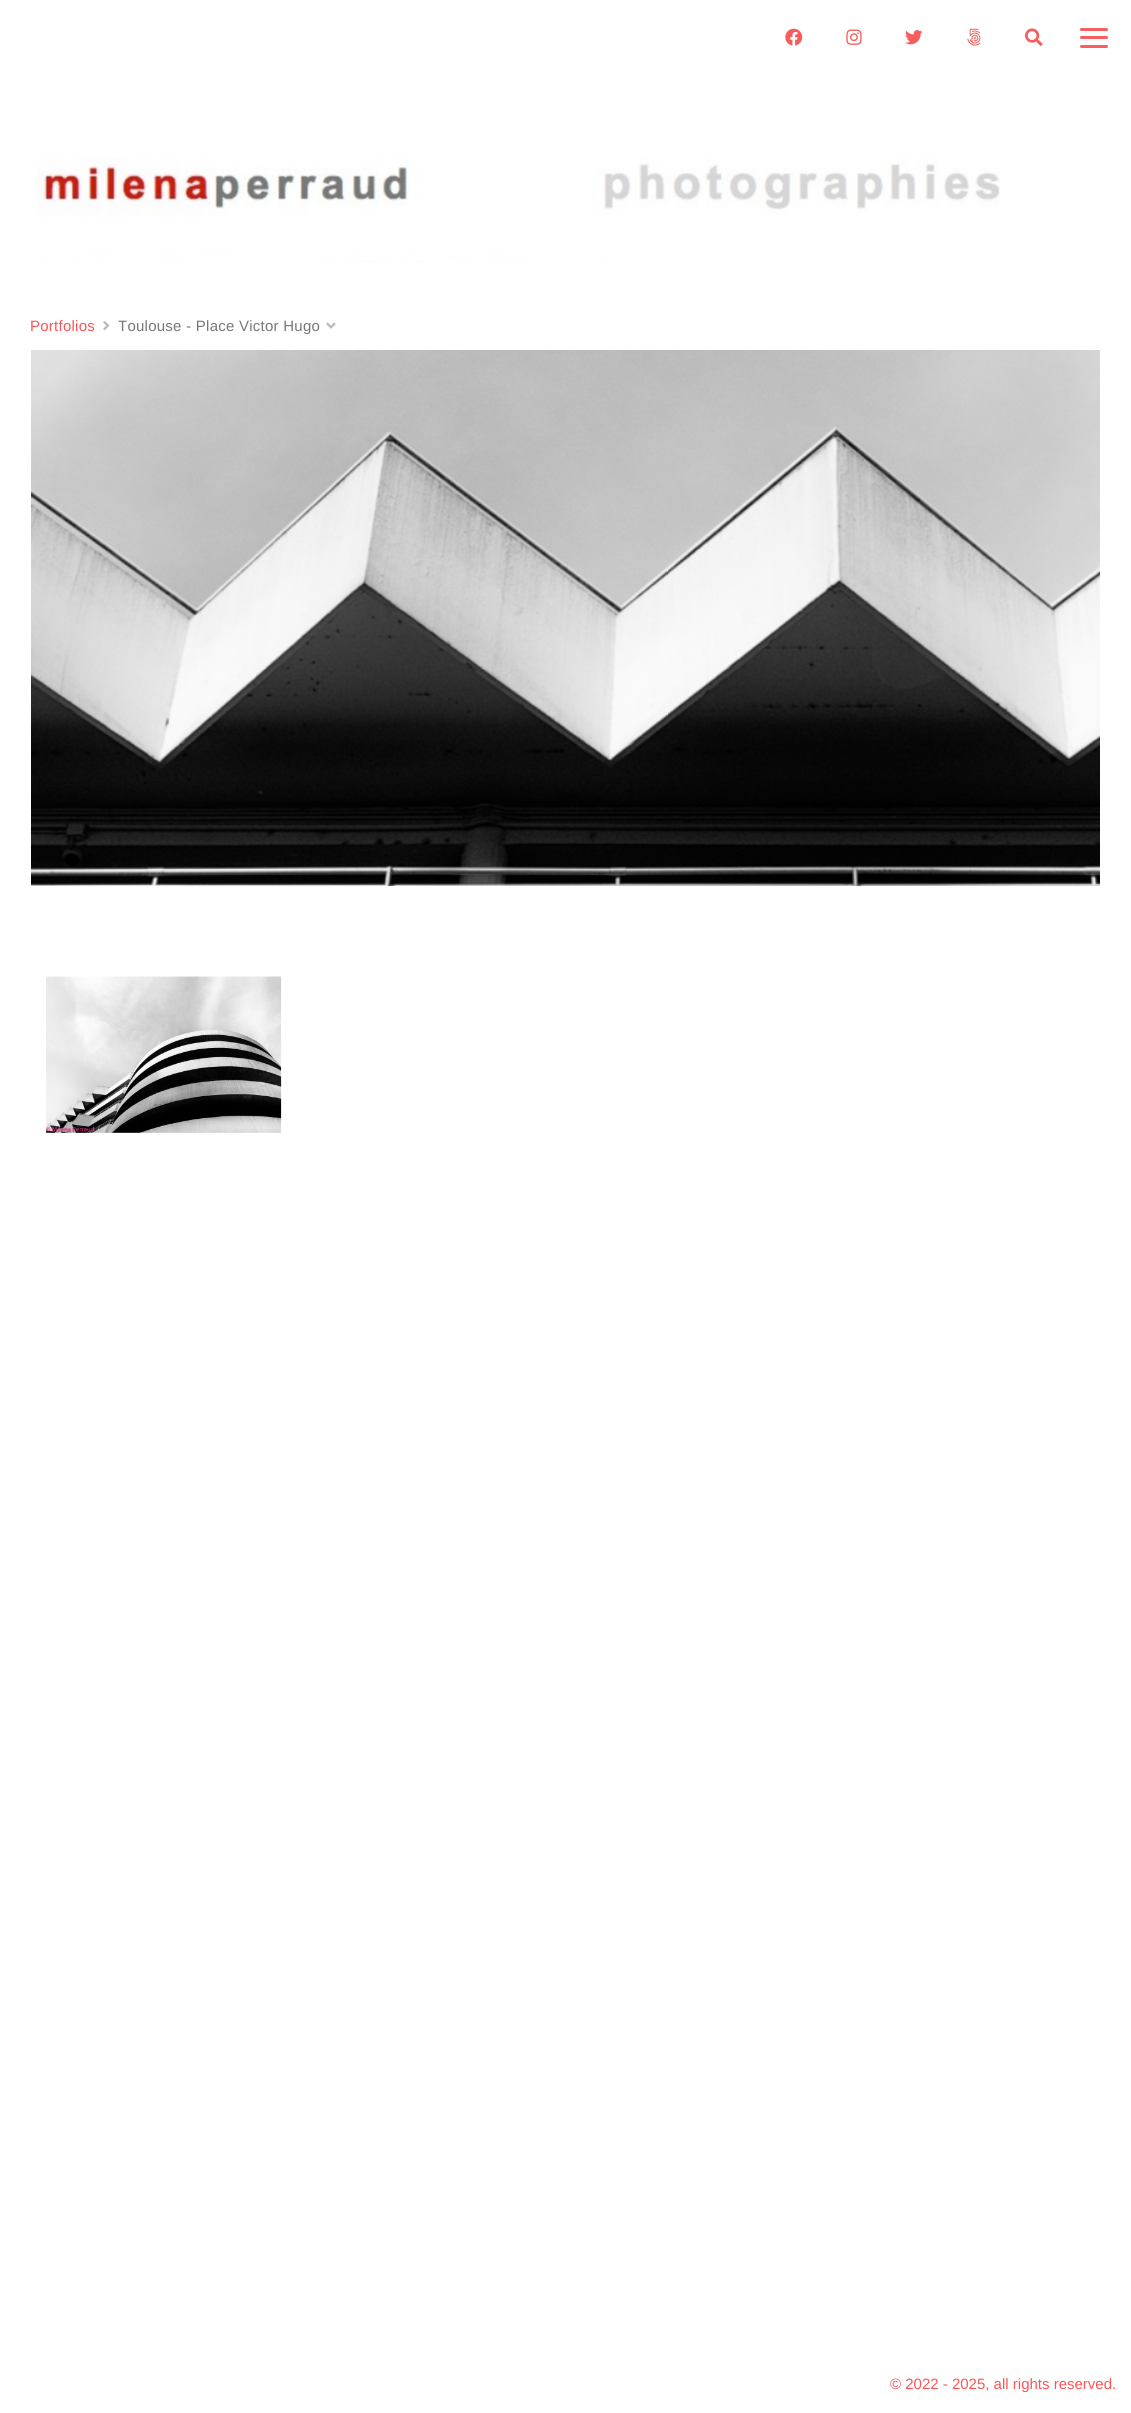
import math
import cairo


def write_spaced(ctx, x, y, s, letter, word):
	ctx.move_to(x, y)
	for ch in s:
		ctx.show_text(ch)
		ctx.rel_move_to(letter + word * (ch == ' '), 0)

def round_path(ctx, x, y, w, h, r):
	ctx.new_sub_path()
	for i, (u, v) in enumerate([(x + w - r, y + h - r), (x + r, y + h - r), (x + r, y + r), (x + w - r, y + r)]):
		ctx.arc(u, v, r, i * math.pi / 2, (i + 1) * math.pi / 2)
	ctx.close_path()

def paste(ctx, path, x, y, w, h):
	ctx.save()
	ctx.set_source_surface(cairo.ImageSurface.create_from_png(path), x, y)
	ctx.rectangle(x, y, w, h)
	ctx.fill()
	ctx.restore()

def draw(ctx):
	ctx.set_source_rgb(1, 1, 1)
	ctx.paint()
	ctx.set_source_rgb(0.965, 0.369, 0.369)
	round_path(ctx, 1080, 28, 28, 3, 1.5)
	ctx.fill()
	round_path(ctx, 1080, 36, 28, 3, 1.5)
	ctx.fill()
	round_path(ctx, 1080, 45, 28, 3, 1.5)
	ctx.fill()
	paste(ctx, 'media/1.png', 785, 28, 18, 18)
	paste(ctx, 'media/2.png', 846, 29, 16, 16)
	paste(ctx, 'media/3.png', 905, 30, 18, 15)
	paste(ctx, 'media/4.png', 967, 28, 14, 18)
	paste(ctx, 'media/5.png', 1025, 28, 18, 18)
	paste(ctx, 'media/6.png', 36, 157, 964, 106)
	ctx.select_font_face('Liberation Sans')
	ctx.set_font_size(15)
	ctx.set_source_rgb(0.984, 0.333, 0.333)
	write_spaced(ctx, 30, 331, 'Portfolios', 0.25, 0)
	paste(ctx, 'media/7.png', 103, 321, 7, 10)
	ctx.set_source_rgb(0.478, 0.463, 0.463)
	write_spaced(ctx, 118, 331, 'Toulouse - Place Victor Hugo', 0.25, 0)
	paste(ctx, 'media/8.png', 326, 322, 10, 7)
	paste(ctx, 'media/9.png', 31, 350, 1069, 536)
	paste(ctx, 'media/10.png', 46, 976, 236, 157)
	ctx.set_source_rgb(0.984, 0.333, 0.333)
	ctx.move_to(890, 2389)
	ctx.show_text('© 2022 - 2025, all rights reserved.')


surface = cairo.ImageSurface(cairo.FORMAT_RGB24, 1131, 2413)
ctx = cairo.Context(surface)
options = cairo.FontOptions()
options.set_hint_metrics(cairo.HINT_METRICS_OFF)
options.set_hint_style(cairo.HINT_STYLE_NONE)
ctx.set_font_options(options)
ctx.set_miter_limit(4)
draw(ctx)
surface.write_to_png('image.png')
